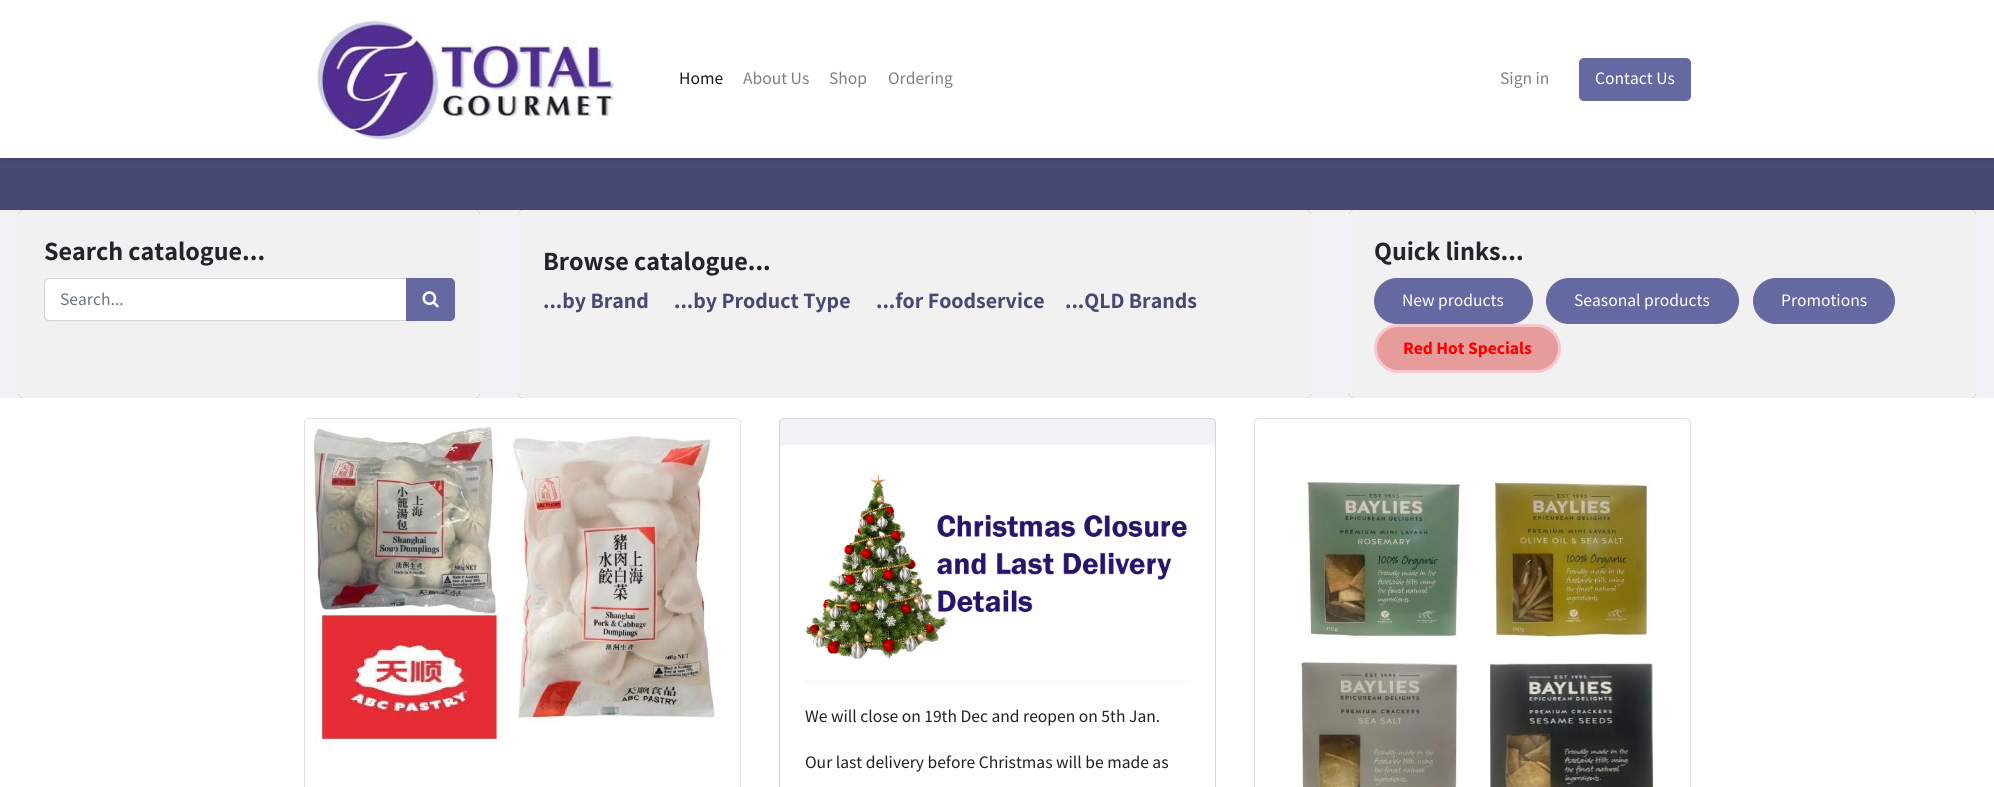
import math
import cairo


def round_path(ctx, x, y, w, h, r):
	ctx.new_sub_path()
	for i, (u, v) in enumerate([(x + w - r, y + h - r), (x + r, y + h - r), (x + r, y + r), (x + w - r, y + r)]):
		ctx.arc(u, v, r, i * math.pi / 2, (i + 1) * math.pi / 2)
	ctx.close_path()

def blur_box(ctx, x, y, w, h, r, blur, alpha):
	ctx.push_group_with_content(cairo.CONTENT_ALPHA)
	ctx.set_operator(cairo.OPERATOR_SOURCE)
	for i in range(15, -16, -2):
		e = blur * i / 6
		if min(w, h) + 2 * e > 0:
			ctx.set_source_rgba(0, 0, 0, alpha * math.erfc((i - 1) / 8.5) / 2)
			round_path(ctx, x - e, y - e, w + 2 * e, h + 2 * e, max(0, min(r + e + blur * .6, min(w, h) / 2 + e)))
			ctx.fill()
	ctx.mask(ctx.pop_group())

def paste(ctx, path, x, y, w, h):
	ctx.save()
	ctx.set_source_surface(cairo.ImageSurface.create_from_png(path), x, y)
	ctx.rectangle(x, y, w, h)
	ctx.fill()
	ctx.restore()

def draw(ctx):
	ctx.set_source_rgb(1, 1, 1)
	ctx.paint()
	ctx.set_source_rgb(0.278, 0.286, 0.451)
	ctx.rectangle(0, 158, 1994, 52)
	ctx.fill()
	ctx.set_source_rgb(0, 0, 0)
	blur_box(ctx, 0, 3, 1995, 157, 0, 2.5, 0.07)
	ctx.set_source_rgb(1, 1, 1)
	ctx.rectangle(0, 0, 1994, 158)
	ctx.fill()
	paste(ctx, 'media/1.png', 317, 10, 297, 134)
	ctx.select_font_face('Source Sans Pro')
	ctx.set_font_size(17.5)
	ctx.set_source_rgb(0.102, 0.102, 0.102)
	ctx.move_to(679, 84)
	ctx.show_text('Home')
	ctx.set_source_rgb(0.502, 0.502, 0.502)
	for x, y, s in [
		(743, 84, 'About Us'),
		(829, 84, 'Shop'),
		(888, 84, 'Ordering'),
		(1500, 84, 'Sign in'),
	]:
		ctx.move_to(x, y)
		ctx.show_text(s)
	ctx.set_source_rgb(0.4, 0.412, 0.631)
	round_path(ctx, 1579.5, 58.5, 111, 42, 4.5)
	ctx.fill_preserve()
	ctx.set_line_width(1)
	ctx.stroke()
	ctx.set_source_rgb(1, 1, 1)
	ctx.move_to(1595, 84)
	ctx.show_text('Contact Us')
	ctx.set_source_rgb(0.941, 0.949, 0.961)
	ctx.rectangle(0, 210, 1994, 188)
	ctx.fill()
	ctx.set_source_rgb(0.424, 0.459, 0.49)
	round_path(ctx, 19, 210, 461, 188, 5)
	ctx.fill()
	ctx.set_source_rgba(1, 1, 1, 0.9)
	round_path(ctx, 19, 210, 461, 188, 5)
	ctx.fill()
	ctx.select_font_face('Assistant', cairo.FONT_SLANT_NORMAL, cairo.FONT_WEIGHT_BOLD)
	ctx.set_font_size(26.25)
	ctx.set_source_rgb(0.129, 0.145, 0.161)
	ctx.move_to(44, 260)
	ctx.show_text('Search catalogue...')
	ctx.set_source_rgb(1, 1, 1)
	ctx.new_path()
	ctx.move_to(49, 279)
	ctx.line_to(406, 279)
	ctx.line_to(406, 320)
	ctx.line_to(49, 320)
	ctx.curve_to(47, 320, 45, 318, 45, 316)
	ctx.line_to(45, 283)
	ctx.curve_to(45, 281, 47, 279, 49, 279)
	ctx.close_path()
	ctx.fill()
	ctx.new_path()
	ctx.move_to(49, 278.5)
	ctx.line_to(407.5, 278.5)
	ctx.line_to(407.5, 320.5)
	ctx.line_to(49, 320.5)
	ctx.curve_to(46.5, 320.5, 44.5, 318.5, 44.5, 316)
	ctx.line_to(44.5, 283)
	ctx.curve_to(44.5, 280.5, 46.5, 278.5, 49, 278.5)
	ctx.close_path()
	ctx.set_source_rgb(0.808, 0.831, 0.855)
	ctx.stroke()
	ctx.select_font_face('Source Sans Pro')
	ctx.set_font_size(17.5)
	ctx.set_source_rgb(0.424, 0.459, 0.49)
	ctx.move_to(60, 305)
	ctx.show_text('Search...')
	ctx.set_source_rgb(0.4, 0.412, 0.631)
	ctx.new_path()
	ctx.move_to(406.5, 278.5)
	ctx.line_to(450, 278.5)
	ctx.curve_to(452.5, 278.5, 454.5, 280.5, 454.5, 283)
	ctx.line_to(454.5, 316)
	ctx.curve_to(454.5, 318.5, 452.5, 320.5, 450, 320.5)
	ctx.line_to(406.5, 320.5)
	ctx.close_path()
	ctx.fill_preserve()
	ctx.stroke()
	paste(ctx, 'media/2.png', 422, 291, 17, 17)
	ctx.set_source_rgb(0.424, 0.459, 0.49)
	round_path(ctx, 518, 210, 793, 188, 5)
	ctx.fill()
	ctx.set_source_rgba(1, 1, 1, 0.9)
	round_path(ctx, 518, 210, 793, 188, 5)
	ctx.fill()
	ctx.select_font_face('Assistant', cairo.FONT_SLANT_NORMAL, cairo.FONT_WEIGHT_BOLD)
	ctx.set_font_size(26.25)
	ctx.set_source_rgb(0.129, 0.145, 0.161)
	ctx.move_to(543, 270)
	ctx.show_text('Browse catalogue...')
	ctx.set_font_size(22)
	ctx.set_source_rgb(0.278, 0.286, 0.455)
	for x, y, s in [
		(543, 308, '...by Brand'),
		(674, 308, '...by Product Type'),
		(876, 308, '...for Foodservice'),
		(1065, 308, '...QLD Brands'),
	]:
		ctx.move_to(x, y)
		ctx.show_text(s)
	ctx.set_source_rgb(0.424, 0.459, 0.49)
	round_path(ctx, 1349, 210, 627, 188, 5)
	ctx.fill()
	ctx.set_source_rgba(1, 1, 1, 0.9)
	round_path(ctx, 1349, 210, 627, 188, 5)
	ctx.fill()
	ctx.set_font_size(26.25)
	ctx.set_source_rgb(0.129, 0.145, 0.161)
	ctx.move_to(1374, 260)
	ctx.show_text('Quick links...')
	ctx.set_source_rgb(0.4, 0.412, 0.631)
	round_path(ctx, 1374.5, 278.5, 158, 45, 22.5)
	ctx.fill_preserve()
	ctx.stroke()
	ctx.select_font_face('Source Sans Pro')
	ctx.set_font_size(17.5)
	ctx.set_source_rgb(1, 1, 1)
	ctx.move_to(1402, 306)
	ctx.show_text('New products')
	ctx.set_source_rgb(0.4, 0.412, 0.631)
	round_path(ctx, 1546.5, 278.5, 192, 45, 22.5)
	ctx.fill_preserve()
	ctx.stroke()
	ctx.set_source_rgb(1, 1, 1)
	ctx.move_to(1574, 306)
	ctx.show_text('Seasonal products')
	ctx.set_source_rgb(0.4, 0.412, 0.631)
	round_path(ctx, 1753.5, 278.5, 141, 45, 22.5)
	ctx.fill_preserve()
	ctx.stroke()
	ctx.set_source_rgb(1, 1, 1)
	ctx.move_to(1781, 306)
	ctx.show_text('Promotions')
	ctx.set_source_rgb(0.906, 0.612, 0.612)
	round_path(ctx, 1375.5, 325.5, 184, 46, 23)
	ctx.fill_preserve()
	ctx.set_source_rgb(0.969, 0.776, 0.808)
	ctx.set_line_width(3)
	ctx.stroke()
	ctx.select_font_face('Source Sans Pro', cairo.FONT_SLANT_NORMAL, cairo.FONT_WEIGHT_BOLD)
	ctx.set_source_rgb(1, 0, 0)
	ctx.move_to(1403, 354)
	ctx.show_text('Red Hot Specials')
	round_path(ctx, 304.5, 418.5, 436, 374, 4.5)
	ctx.set_source_rgb(0.875, 0.875, 0.875)
	ctx.set_line_width(1)
	ctx.stroke()
	paste(ctx, 'media/3.png', 305, 419, 435, 324)
	ctx.set_source_rgb(0.941, 0.949, 0.961)
	ctx.new_path()
	ctx.move_to(784, 418)
	ctx.line_to(1211, 418)
	ctx.curve_to(1214, 418, 1216, 420, 1216, 423)
	ctx.line_to(1216, 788)
	ctx.line_to(779, 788)
	ctx.line_to(779, 423)
	ctx.curve_to(779, 420, 781, 418, 784, 418)
	ctx.close_path()
	ctx.fill()
	round_path(ctx, 779.5, 418.5, 436, 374, 4.5)
	ctx.set_source_rgba(0, 0, 0, 0.12)
	ctx.stroke()
	ctx.set_source_rgb(0.996, 0.996, 0.996)
	ctx.new_path()
	ctx.move_to(784, 445)
	ctx.line_to(1211, 445)
	ctx.curve_to(1213, 445, 1215, 447, 1215, 449)
	ctx.line_to(1215, 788)
	ctx.line_to(780, 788)
	ctx.line_to(780, 449)
	ctx.curve_to(780, 447, 782, 445, 784, 445)
	ctx.close_path()
	ctx.fill()
	paste(ctx, 'media/4.png', 805, 473, 382, 186)
	ctx.set_source_rgb(0.941, 0.949, 0.961)
	ctx.rectangle(805, 681, 385, 1)
	ctx.fill()
	ctx.select_font_face('Source Sans Pro')
	ctx.set_source_rgb(0.129, 0.129, 0.129)
	ctx.move_to(805, 722)
	ctx.show_text('We will close on 19th Dec and reopen on 5th Jan.')
	ctx.move_to(805, 768)
	ctx.show_text('Our last delivery before Christmas will be made as')
	round_path(ctx, 1254.5, 418.5, 436, 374, 4.5)
	ctx.set_source_rgb(0.875, 0.875, 0.875)
	ctx.stroke()
	paste(ctx, 'media/5.png', 1298, 479, 357, 308)


surface = cairo.ImageSurface(cairo.FORMAT_RGB24, 1994, 787)
ctx = cairo.Context(surface)
options = cairo.FontOptions()
options.set_hint_metrics(cairo.HINT_METRICS_OFF)
options.set_hint_style(cairo.HINT_STYLE_NONE)
ctx.set_font_options(options)
ctx.set_miter_limit(4)
draw(ctx)
surface.write_to_png('image.png')
